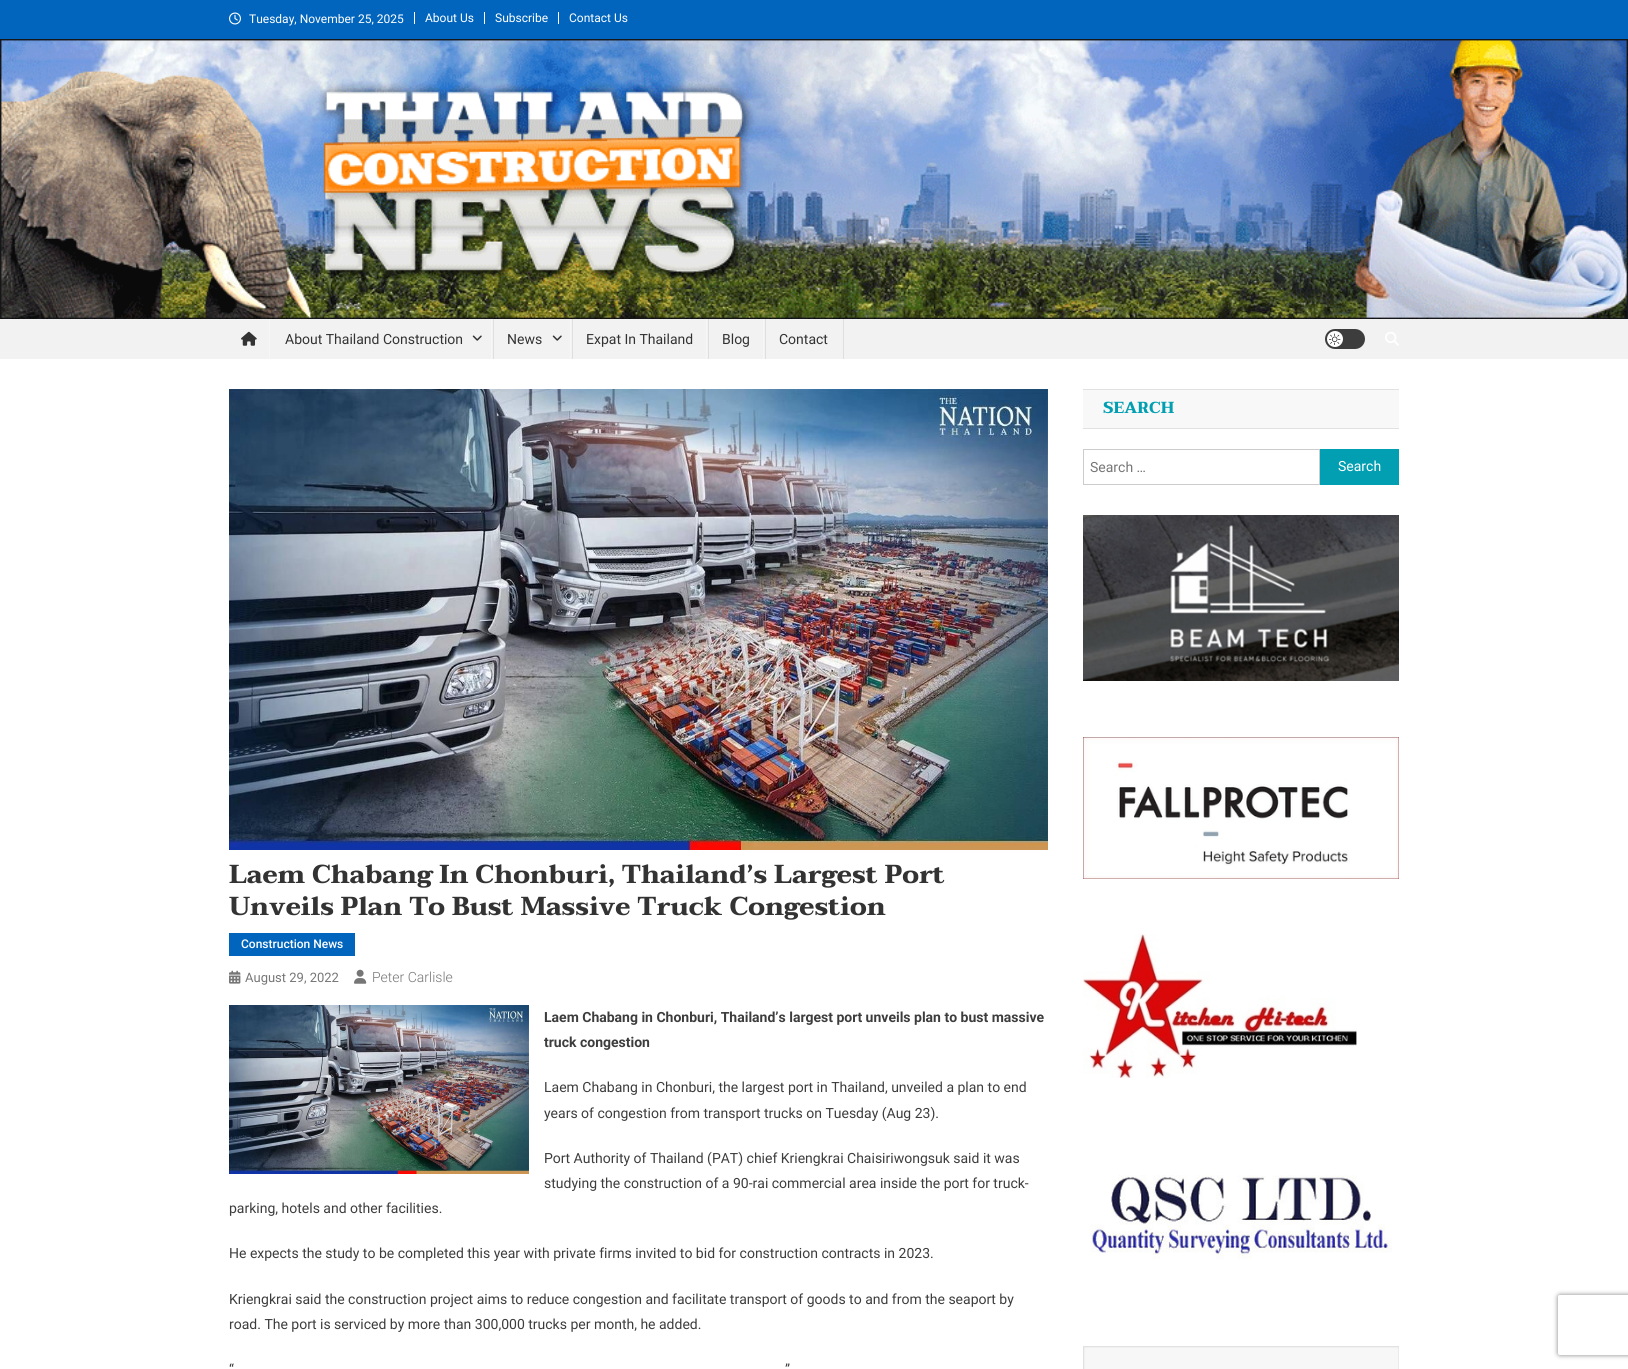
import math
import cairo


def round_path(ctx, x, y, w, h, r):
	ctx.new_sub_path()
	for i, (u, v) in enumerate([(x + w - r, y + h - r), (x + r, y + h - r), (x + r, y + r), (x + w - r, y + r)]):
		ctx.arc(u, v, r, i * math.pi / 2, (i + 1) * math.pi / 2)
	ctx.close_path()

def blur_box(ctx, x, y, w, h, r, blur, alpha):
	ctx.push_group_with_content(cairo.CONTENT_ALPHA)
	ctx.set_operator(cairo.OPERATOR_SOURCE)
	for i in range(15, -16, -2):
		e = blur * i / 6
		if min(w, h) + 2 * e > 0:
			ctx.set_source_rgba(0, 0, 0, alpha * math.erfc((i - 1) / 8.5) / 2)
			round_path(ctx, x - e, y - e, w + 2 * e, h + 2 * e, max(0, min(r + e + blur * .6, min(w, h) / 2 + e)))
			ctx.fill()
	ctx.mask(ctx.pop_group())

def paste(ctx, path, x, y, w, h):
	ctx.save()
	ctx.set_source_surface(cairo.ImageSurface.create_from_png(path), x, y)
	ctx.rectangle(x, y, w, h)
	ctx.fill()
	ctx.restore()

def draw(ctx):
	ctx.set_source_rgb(1, 1, 1)
	ctx.paint()
	ctx.set_source_rgb(0.004, 0.396, 0.741)
	ctx.rectangle(0, 0, 1628, 39)
	ctx.fill()
	paste(ctx, 'media/1.png', 229, 12, 12, 13)
	ctx.select_font_face('Roboto')
	ctx.set_font_size(12)
	ctx.set_source_rgb(1, 1, 1)
	ctx.move_to(249, 23)
	ctx.show_text('Tuesday, November 25, 2025')
	ctx.rectangle(414, 12, 1, 12)
	ctx.fill()
	ctx.move_to(425, 22)
	ctx.show_text('About Us')
	ctx.rectangle(484, 12, 1, 12)
	ctx.fill()
	ctx.move_to(495, 22)
	ctx.show_text('Subscribe')
	ctx.rectangle(558, 12, 1, 12)
	ctx.fill()
	ctx.move_to(569, 22)
	ctx.show_text('Contact Us')
	paste(ctx, 'media/2.png', 0, 39, 1628, 280)
	ctx.set_source_rgb(0.949, 0.949, 0.949)
	ctx.rectangle(0, 319, 1628, 40)
	ctx.fill()
	paste(ctx, 'media/3.png', 241, 331, 16, 15)
	ctx.set_source_rgb(0.875, 0.875, 0.875)
	ctx.rectangle(493, 319, 1, 40)
	ctx.fill()
	ctx.set_source_rgb(0.961, 0.961, 0.961)
	ctx.rectangle(269, 319, 1, 40)
	ctx.fill()
	ctx.set_font_size(14)
	ctx.set_source_rgb(0.2, 0.2, 0.2)
	ctx.move_to(285, 344)
	ctx.show_text('About Thailand Construction')
	paste(ctx, 'media/4.png', 472, 335, 10, 6)
	ctx.set_source_rgb(0.875, 0.875, 0.875)
	ctx.rectangle(572, 319, 1, 40)
	ctx.fill()
	ctx.set_source_rgb(0.961, 0.961, 0.961)
	ctx.rectangle(491, 319, 1, 40)
	ctx.fill()
	ctx.set_source_rgb(0.2, 0.2, 0.2)
	ctx.move_to(507, 344)
	ctx.show_text('News')
	paste(ctx, 'media/4.png', 552, 335, 10, 6)
	ctx.set_source_rgb(0.875, 0.875, 0.875)
	ctx.rectangle(708, 319, 1, 40)
	ctx.fill()
	ctx.set_source_rgb(0.961, 0.961, 0.961)
	ctx.rectangle(570, 319, 1, 40)
	ctx.fill()
	ctx.set_source_rgb(0.2, 0.2, 0.2)
	ctx.move_to(586, 344)
	ctx.show_text('Expat In Thailand')
	ctx.set_source_rgb(0.875, 0.875, 0.875)
	ctx.rectangle(765, 319, 1, 40)
	ctx.fill()
	ctx.set_source_rgb(0.961, 0.961, 0.961)
	ctx.rectangle(706, 319, 1, 40)
	ctx.fill()
	ctx.set_source_rgb(0.2, 0.2, 0.2)
	ctx.move_to(722, 344)
	ctx.show_text('Blog')
	ctx.set_source_rgb(0.875, 0.875, 0.875)
	ctx.rectangle(843, 319, 1, 40)
	ctx.fill()
	ctx.set_source_rgb(0.961, 0.961, 0.961)
	ctx.rectangle(763, 319, 1, 40)
	ctx.fill()
	ctx.set_source_rgb(0.2, 0.2, 0.2)
	ctx.move_to(779, 344)
	ctx.show_text('Contact')
	ctx.set_source_rgb(0.239, 0.239, 0.239)
	round_path(ctx, 1325, 329, 40, 20, 10)
	ctx.fill()
	ctx.set_source_rgb(1, 1, 1)
	ctx.arc(1335, 339, 8, 0, 2 * math.pi)
	ctx.fill()
	paste(ctx, 'media/5.png', 1329, 333, 12, 12)
	paste(ctx, 'media/6.png', 1385, 332, 14, 14)
	ctx.set_source_rgb(0.969, 0.969, 0.969)
	ctx.rectangle(1083, 390, 316, 38)
	ctx.fill()
	ctx.set_source_rgb(0.882, 0.882, 0.882)
	ctx.rectangle(1083, 389, 316, 1)
	ctx.rectangle(1083, 428, 316, 1)
	ctx.fill()
	ctx.select_font_face('Taviraj', cairo.FONT_SLANT_NORMAL, cairo.FONT_WEIGHT_BOLD)
	ctx.set_font_size(16)
	ctx.set_source_rgb(0.008, 0.624, 0.698)
	ctx.move_to(1103, 413)
	ctx.show_text('SEARCH')
	ctx.rectangle(1083.5, 449.5, 236, 35)
	ctx.set_source_rgb(0.8, 0.8, 0.8)
	ctx.set_line_width(1)
	ctx.stroke()
	ctx.select_font_face('Roboto')
	ctx.set_font_size(14)
	ctx.set_source_rgb(0.463, 0.463, 0.463)
	ctx.move_to(1090, 472)
	ctx.show_text('Search …')
	ctx.set_source_rgb(0.008, 0.624, 0.698)
	ctx.rectangle(1320, 449, 79, 36)
	ctx.fill()
	ctx.set_source_rgb(1, 1, 1)
	ctx.move_to(1338, 471)
	ctx.show_text('Search')
	paste(ctx, 'media/7.png', 1083, 515, 316, 166)
	paste(ctx, 'media/8.png', 1083, 737, 316, 142)
	paste(ctx, 'media/9.png', 1083, 934, 274, 144)
	paste(ctx, 'media/10.png', 1090, 1175, 302, 84)
	paste(ctx, 'media/11.png', 1083, 1346, 316, 23)
	paste(ctx, 'media/12.png', 229, 389, 819, 461)
	ctx.select_font_face('Taviraj', cairo.FONT_SLANT_NORMAL, cairo.FONT_WEIGHT_BOLD)
	ctx.set_font_size(26)
	ctx.set_source_rgb(0.2, 0.2, 0.2)
	ctx.move_to(229, 883)
	ctx.show_text('Laem Chabang In Chonburi, Thailand’s Largest Port')
	ctx.move_to(229, 915)
	ctx.show_text('Unveils Plan To Bust Massive Truck Congestion')
	ctx.set_source_rgb(0.004, 0.396, 0.741)
	ctx.rectangle(229, 933, 126, 23)
	ctx.fill()
	ctx.select_font_face('Roboto Medium')
	ctx.set_font_size(12)
	ctx.set_source_rgb(1, 1, 1)
	ctx.move_to(241, 948)
	ctx.show_text('Construction News')
	paste(ctx, 'media/13.png', 229, 970, 12, 14)
	ctx.select_font_face('Roboto')
	ctx.set_font_size(13)
	ctx.set_source_rgb(0.463, 0.463, 0.463)
	ctx.move_to(245, 982)
	ctx.show_text('August 29, 2022')
	paste(ctx, 'media/14.png', 354, 969, 13, 15)
	ctx.select_font_face('Roboto Light')
	ctx.set_font_size(14)
	ctx.move_to(372, 982)
	ctx.show_text('Peter Carlisle')
	paste(ctx, 'media/15.png', 229, 1005, 300, 169)
	ctx.select_font_face('Roboto', cairo.FONT_SLANT_NORMAL, cairo.FONT_WEIGHT_BOLD)
	ctx.set_source_rgb(0.239, 0.239, 0.239)
	ctx.move_to(544, 1022)
	ctx.show_text('Laem Chabang in Chonburi, Thailand’s largest port unveils plan to bust massive')
	ctx.move_to(544, 1047)
	ctx.show_text('truck congestion')
	ctx.select_font_face('Roboto')
	for x, y, s in [
		(544, 1092, 'Laem Chabang in Chonburi, the largest port in Thailand, unveiled a plan to end'),
		(544, 1118, 'years of congestion from transport trucks on Tuesday (Aug 23).'),
		(544, 1163, 'Port Authority of Thailand (PAT) chief Kriengkrai Chaisiriwongsuk said it was'),
		(544, 1188, 'studying the construction of a 90-rai commercial area inside the port for truck-'),
		(229, 1213, 'parking, hotels and other facilities.'),
		(229, 1258, 'He expects the study to be completed this year with private firms invited to bid for construction contracts in 2023.'),
		(229, 1304, 'Kriengkrai said the construction project aims to reduce congestion and facilitate transport of goods to and from the seaport by'),
		(229, 1329, 'road. The port is serviced by more than 300,000 trucks per month, he added.'),
		(229, 1374, '“'),
		(785, 1374, '”'),
	]:
		ctx.move_to(x, y)
		ctx.show_text(s)
	ctx.save()
	ctx.set_fill_rule(cairo.FILL_RULE_EVEN_ODD)
	ctx.new_path()
	ctx.move_to(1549, 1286)
	ctx.line_to(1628, 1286)
	ctx.line_to(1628, 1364)
	ctx.line_to(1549, 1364)
	ctx.close_path()
	ctx.move_to(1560, 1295)
	ctx.line_to(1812, 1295)
	ctx.curve_to(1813, 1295, 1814, 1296, 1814, 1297)
	ctx.line_to(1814, 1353)
	ctx.curve_to(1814, 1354, 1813, 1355, 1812, 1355)
	ctx.line_to(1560, 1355)
	ctx.curve_to(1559, 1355, 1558, 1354, 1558, 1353)
	ctx.line_to(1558, 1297)
	ctx.curve_to(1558, 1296, 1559, 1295, 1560, 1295)
	ctx.close_path()
	ctx.clip()
	ctx.set_source_rgb(0.502, 0.502, 0.502)
	blur_box(ctx, 1558, 1295, 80, 60, 2, 2.5, 1)
	ctx.restore()


surface = cairo.ImageSurface(cairo.FORMAT_RGB24, 1628, 1369)
ctx = cairo.Context(surface)
options = cairo.FontOptions()
options.set_hint_metrics(cairo.HINT_METRICS_OFF)
options.set_hint_style(cairo.HINT_STYLE_NONE)
ctx.set_font_options(options)
ctx.set_miter_limit(4)
draw(ctx)
surface.write_to_png('image.png')
